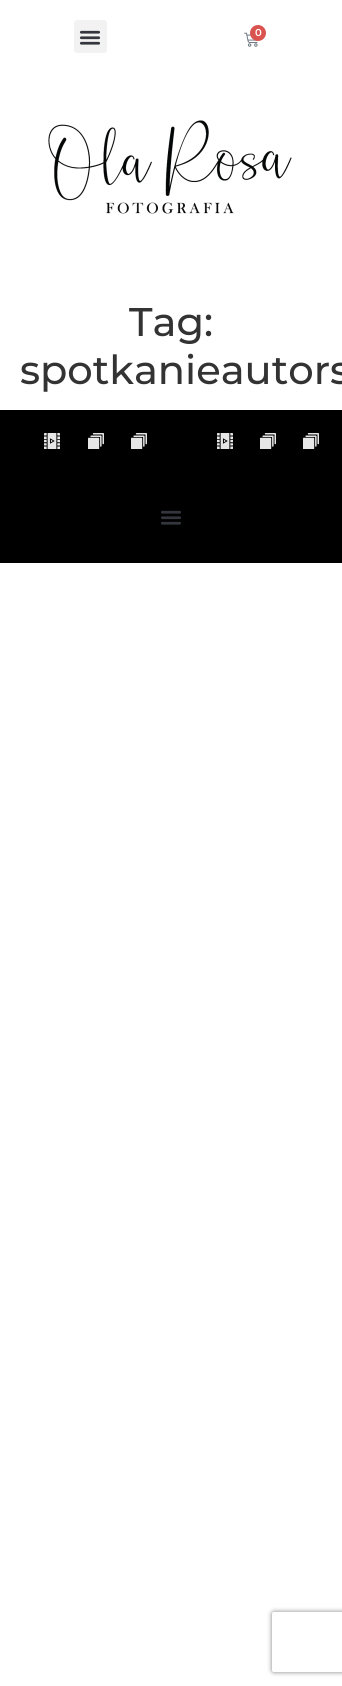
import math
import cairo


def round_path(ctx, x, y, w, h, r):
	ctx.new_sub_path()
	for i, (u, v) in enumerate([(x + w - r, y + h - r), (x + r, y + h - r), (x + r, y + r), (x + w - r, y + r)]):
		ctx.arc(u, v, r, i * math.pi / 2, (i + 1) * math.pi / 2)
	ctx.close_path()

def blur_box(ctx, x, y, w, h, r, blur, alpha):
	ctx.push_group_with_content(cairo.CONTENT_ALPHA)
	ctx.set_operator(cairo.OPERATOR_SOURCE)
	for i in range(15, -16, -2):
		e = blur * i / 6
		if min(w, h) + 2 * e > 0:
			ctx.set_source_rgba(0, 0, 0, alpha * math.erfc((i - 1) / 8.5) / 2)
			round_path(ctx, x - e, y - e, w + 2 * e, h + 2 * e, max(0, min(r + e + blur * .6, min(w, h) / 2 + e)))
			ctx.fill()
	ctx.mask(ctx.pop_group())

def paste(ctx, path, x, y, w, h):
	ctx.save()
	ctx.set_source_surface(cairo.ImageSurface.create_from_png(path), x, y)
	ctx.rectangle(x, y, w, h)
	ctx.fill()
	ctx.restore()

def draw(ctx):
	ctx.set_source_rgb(1, 1, 1)
	ctx.paint()
	ctx.set_source_rgb(0.949, 0.949, 0.949)
	round_path(ctx, 74, 20, 33, 33, 3)
	ctx.fill()
	paste(ctx, 'media/1.png', 79, 30, 22, 15)
	paste(ctx, 'media/2.png', 244, 32, 14, 15)
	ctx.set_source_rgb(0.851, 0.325, 0.31)
	ctx.arc(258, 33, 8, 0, 2 * math.pi)
	ctx.fill()
	ctx.select_font_face('Montserrat SemiBold')
	ctx.set_font_size(10)
	ctx.set_source_rgb(1, 1, 1)
	ctx.move_to(255, 36)
	ctx.show_text('0')
	paste(ctx, 'media/3.png', 48, 120, 244, 94)
	ctx.select_font_face('Montserrat Medium')
	ctx.set_font_size(40)
	ctx.set_source_rgb(0.2, 0.2, 0.2)
	ctx.move_to(129, 336)
	ctx.show_text('Tag:')
	ctx.move_to(20, 384)
	ctx.show_text('spotkanieautors')
	ctx.set_source_rgb(0, 0, 0)
	ctx.rectangle(0, 410, 342, 153)
	ctx.fill()
	paste(ctx, 'media/4.png', 44, 433, 275, 16)
	paste(ctx, 'media/5.png', 161, 510, 20, 15)
	ctx.save()
	ctx.set_fill_rule(cairo.FILL_RULE_EVEN_ODD)
	ctx.new_path()
	ctx.move_to(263, 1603)
	ctx.line_to(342, 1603)
	ctx.line_to(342, 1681)
	ctx.line_to(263, 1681)
	ctx.close_path()
	ctx.move_to(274, 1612)
	ctx.line_to(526, 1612)
	ctx.curve_to(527, 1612, 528, 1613, 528, 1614)
	ctx.line_to(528, 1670)
	ctx.curve_to(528, 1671, 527, 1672, 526, 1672)
	ctx.line_to(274, 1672)
	ctx.curve_to(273, 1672, 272, 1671, 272, 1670)
	ctx.line_to(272, 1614)
	ctx.curve_to(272, 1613, 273, 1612, 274, 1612)
	ctx.close_path()
	ctx.clip()
	ctx.set_source_rgb(0.502, 0.502, 0.502)
	blur_box(ctx, 272, 1612, 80, 60, 2, 2.5, 1)
	ctx.restore()


surface = cairo.ImageSurface(cairo.FORMAT_RGB24, 342, 1686)
ctx = cairo.Context(surface)
options = cairo.FontOptions()
options.set_hint_metrics(cairo.HINT_METRICS_OFF)
options.set_hint_style(cairo.HINT_STYLE_NONE)
ctx.set_font_options(options)
ctx.set_miter_limit(4)
draw(ctx)
surface.write_to_png('image.png')
